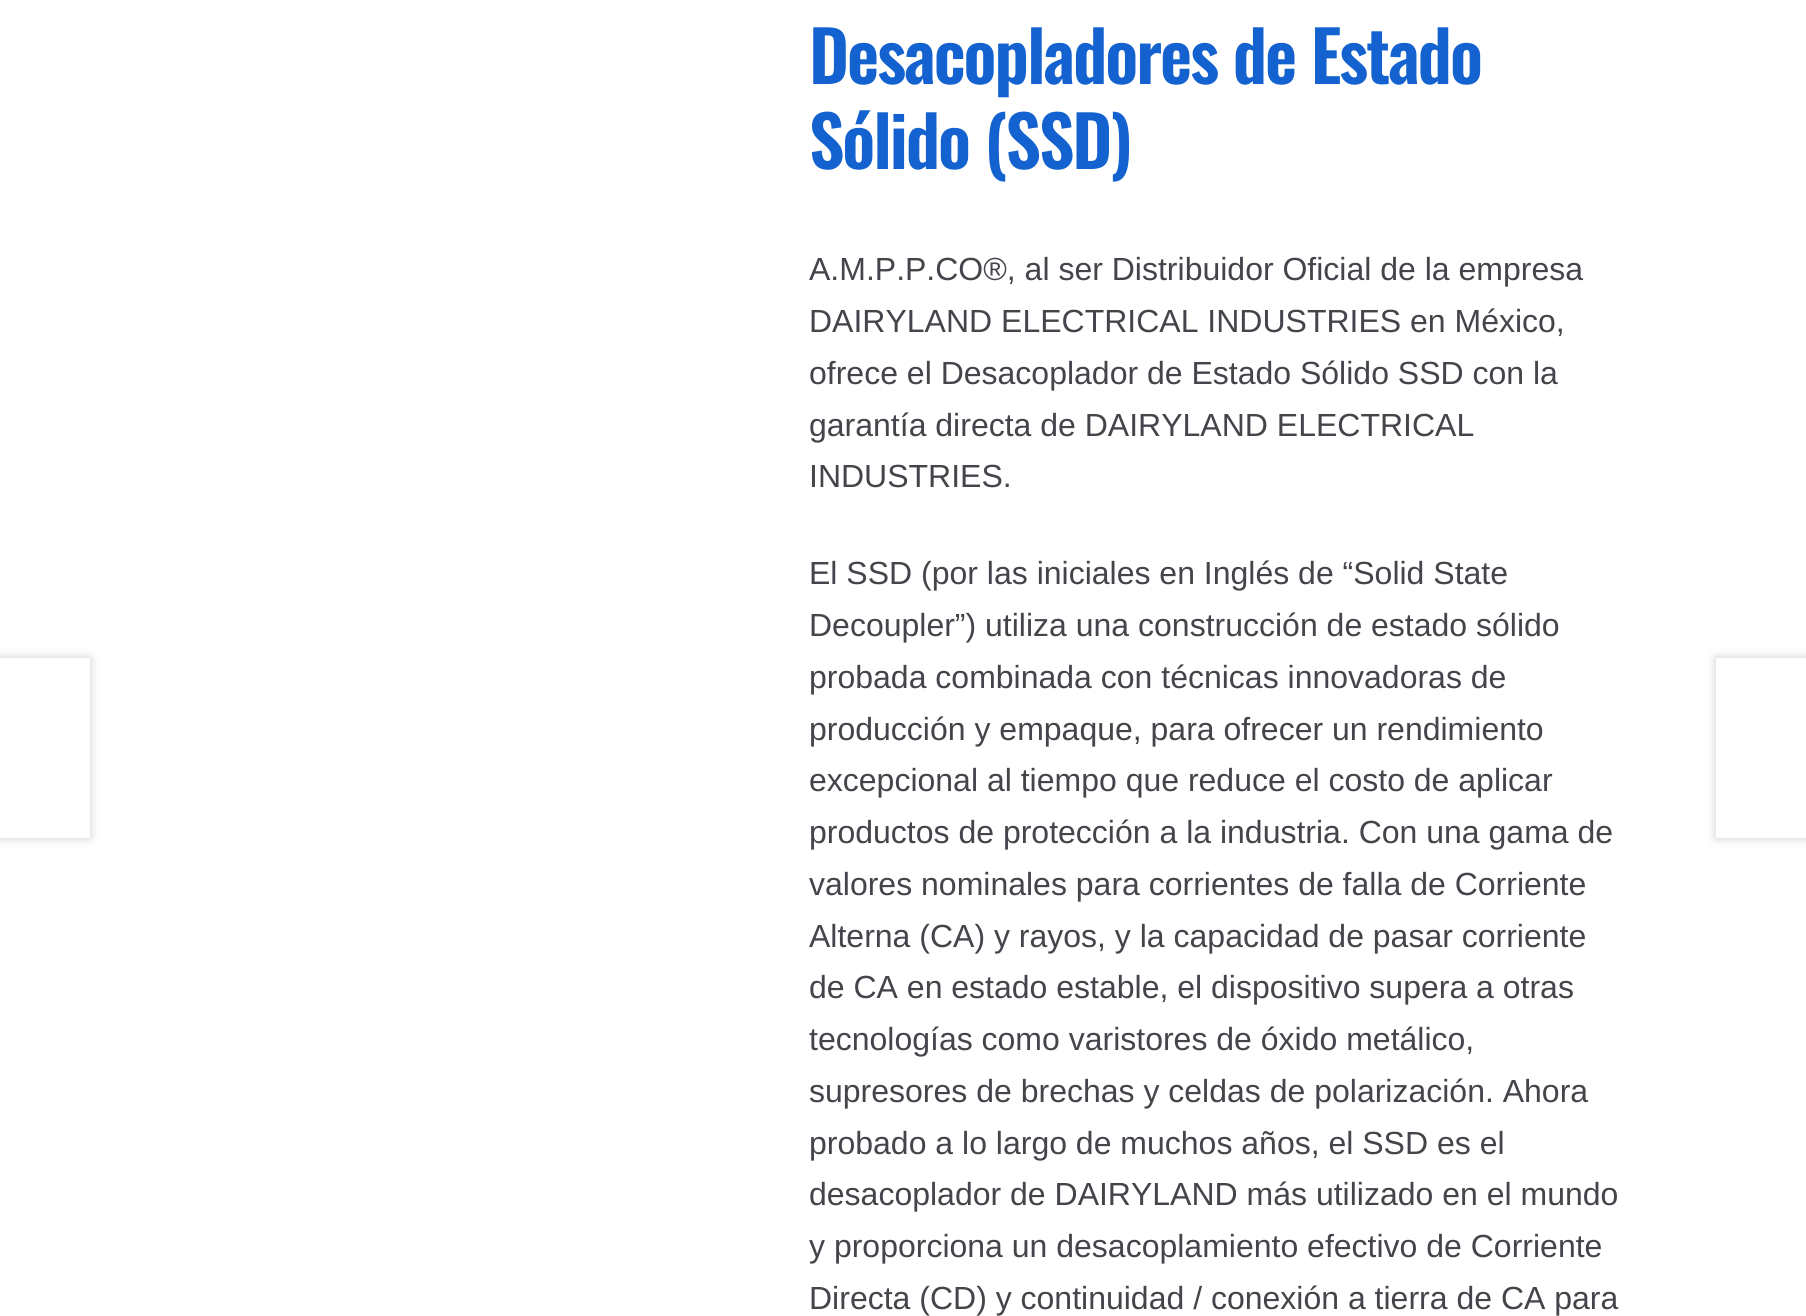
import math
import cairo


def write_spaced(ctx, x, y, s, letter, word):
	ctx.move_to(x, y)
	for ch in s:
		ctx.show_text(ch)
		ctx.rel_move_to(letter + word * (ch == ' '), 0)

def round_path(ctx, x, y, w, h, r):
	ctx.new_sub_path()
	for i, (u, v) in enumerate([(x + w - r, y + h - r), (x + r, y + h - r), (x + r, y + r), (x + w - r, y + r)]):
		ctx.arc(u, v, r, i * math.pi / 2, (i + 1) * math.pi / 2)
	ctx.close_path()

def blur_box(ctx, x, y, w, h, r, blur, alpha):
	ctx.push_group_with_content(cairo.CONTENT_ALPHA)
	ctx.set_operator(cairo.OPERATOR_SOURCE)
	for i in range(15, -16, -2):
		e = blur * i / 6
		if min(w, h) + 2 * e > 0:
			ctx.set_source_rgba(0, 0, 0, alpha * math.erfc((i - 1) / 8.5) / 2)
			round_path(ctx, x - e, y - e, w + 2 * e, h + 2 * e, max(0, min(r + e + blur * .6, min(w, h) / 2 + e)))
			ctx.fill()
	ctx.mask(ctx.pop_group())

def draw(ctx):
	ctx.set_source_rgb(1, 1, 1)
	ctx.paint()
	ctx.select_font_face('Oswald SemiBold')
	ctx.set_font_size(70)
	ctx.set_source_rgb(0.082, 0.384, 0.812)
	write_spaced(ctx, 809, 84, 'Desacopladores de Estado', -2, 0)
	write_spaced(ctx, 809, 169, 'Sólido (SSD)', -2, 0)
	ctx.select_font_face('Liberation Sans')
	ctx.set_font_size(32)
	ctx.set_source_rgb(0.263, 0.271, 0.294)
	for x, y, s in [
		(809, 280, 'A.M.P.P.CO®, al ser Distribuidor Oficial de la empresa'),
		(809, 332, 'DAIRYLAND ELECTRICAL INDUSTRIES en México,'),
		(809, 384, 'ofrece el Desacoplador de Estado Sólido SSD con la'),
		(809, 436, 'garantía directa de DAIRYLAND ELECTRICAL'),
		(809, 487, 'INDUSTRIES.'),
		(809, 584, 'El SSD (por las iniciales en Inglés de “Solid State'),
		(809, 636, 'Decoupler”) utiliza una construcción de estado sólido'),
		(809, 688, 'probada combinada con técnicas innovadoras de'),
		(809, 740, 'producción y empaque, para ofrecer un rendimiento'),
		(809, 791, 'excepcional al tiempo que reduce el costo de aplicar'),
		(809, 843, 'productos de protección a la industria. Con una gama de'),
		(809, 895, 'valores nominales para corrientes de falla de Corriente'),
		(809, 947, 'Alterna (CA) y rayos, y la capacidad de pasar corriente'),
		(809, 998, 'de CA en estado estable, el dispositivo supera a otras'),
		(809, 1050, 'tecnologías como varistores de óxido metálico,'),
		(809, 1102, 'supresores de brechas y celdas de polarización. Ahora'),
		(809, 1154, 'probado a lo largo de muchos años, el SSD es el'),
		(809, 1205, 'desacoplador de DAIRYLAND más utilizado en el mundo'),
		(809, 1257, 'y proporciona un desacoplamiento efectivo de Corriente'),
		(809, 1309, 'Directa (CD) y continuidad / conexión a tierra de CA para'),
	]:
		ctx.move_to(x, y)
		ctx.show_text(s)
	ctx.save()
	ctx.set_fill_rule(cairo.FILL_RULE_EVEN_ODD)
	ctx.new_path()
	ctx.move_to(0, 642)
	ctx.line_to(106, 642)
	ctx.line_to(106, 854)
	ctx.line_to(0, 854)
	ctx.close_path()
	ctx.move_to(-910, 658)
	ctx.line_to(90, 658)
	ctx.line_to(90, 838)
	ctx.line_to(-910, 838)
	ctx.close_path()
	ctx.clip()
	ctx.set_source_rgb(0, 0, 0)
	blur_box(ctx, -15, 658, 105, 180, 0, 5, 0.2)
	ctx.restore()
	ctx.save()
	ctx.set_fill_rule(cairo.FILL_RULE_EVEN_ODD)
	ctx.new_path()
	ctx.move_to(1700, 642)
	ctx.line_to(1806, 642)
	ctx.line_to(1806, 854)
	ctx.line_to(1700, 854)
	ctx.close_path()
	ctx.move_to(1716, 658)
	ctx.line_to(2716, 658)
	ctx.line_to(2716, 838)
	ctx.line_to(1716, 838)
	ctx.close_path()
	ctx.clip()
	ctx.set_source_rgb(0, 0, 0)
	blur_box(ctx, 1716, 658, 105, 180, 0, 5, 0.2)
	ctx.restore()


surface = cairo.ImageSurface(cairo.FORMAT_RGB24, 1806, 1316)
ctx = cairo.Context(surface)
options = cairo.FontOptions()
options.set_hint_metrics(cairo.HINT_METRICS_OFF)
options.set_hint_style(cairo.HINT_STYLE_NONE)
ctx.set_font_options(options)
ctx.set_miter_limit(4)
draw(ctx)
surface.write_to_png('image.png')
